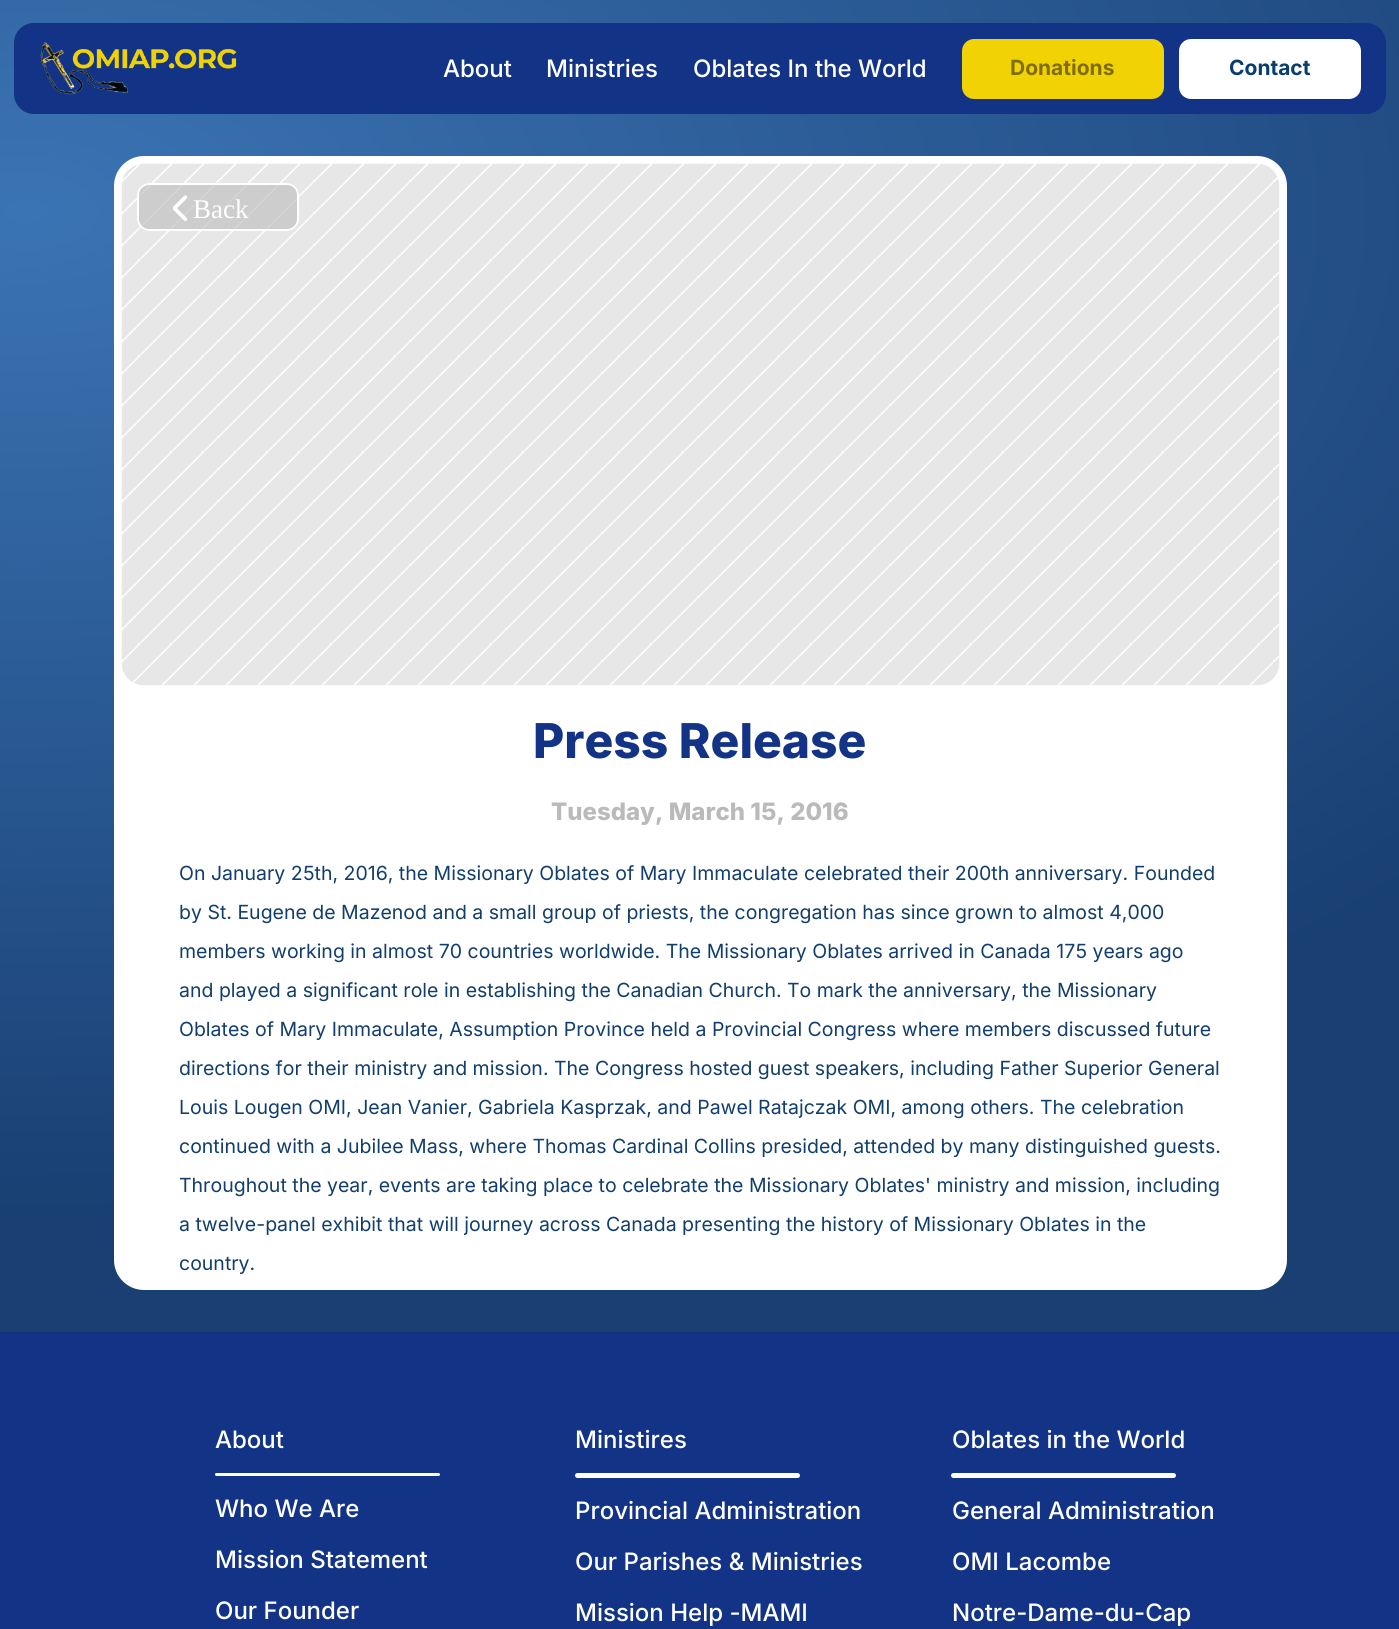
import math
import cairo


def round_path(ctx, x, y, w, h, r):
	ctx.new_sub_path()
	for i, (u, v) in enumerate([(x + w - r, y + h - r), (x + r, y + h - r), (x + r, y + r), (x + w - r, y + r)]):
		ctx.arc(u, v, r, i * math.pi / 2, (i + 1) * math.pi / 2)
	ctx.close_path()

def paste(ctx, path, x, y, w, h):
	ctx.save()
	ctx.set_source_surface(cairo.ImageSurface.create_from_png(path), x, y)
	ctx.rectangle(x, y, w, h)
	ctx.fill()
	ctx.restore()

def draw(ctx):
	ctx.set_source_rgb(1, 1, 1)
	ctx.paint()
	gradient = cairo.RadialGradient(0, 0, 0, 0, 0, 1)
	gradient.set_matrix(cairo.Matrix(1 / 1887, 0, 0, 1 / 1011, -1 * 21 / 1887, -1 * 210 / 1011))
	gradient.add_color_stop_rgba(0, 0.231, 0.455, 0.706, 1)
	gradient.add_color_stop_rgba(1, 0.098, 0.247, 0.451, 1)
	ctx.set_source(gradient)
	ctx.rectangle(0, 0, 1399, 1332)
	ctx.fill()
	ctx.set_source_rgb(0.075, 0.204, 0.525)
	round_path(ctx, 14, 23, 1372, 91, 20)
	ctx.fill()
	paste(ctx, 'media/1.png', 40, 42, 197, 53)
	ctx.select_font_face('Inter Medium')
	ctx.set_font_size(24)
	ctx.set_source_rgb(1, 1, 1)
	for x, y, s in [
		(443, 77, 'About'),
		(546, 77, 'Ministries'),
		(693, 77, 'Oblates In the World'),
	]:
		ctx.move_to(x, y)
		ctx.show_text(s)
	ctx.set_source_rgb(0.945, 0.824, 0.016)
	round_path(ctx, 962, 39, 202, 60, 12)
	ctx.fill()
	ctx.select_font_face('Inter', cairo.FONT_SLANT_NORMAL, cairo.FONT_WEIGHT_BOLD)
	ctx.set_font_size(21)
	ctx.set_source_rgb(0.494, 0.431, 0.008)
	ctx.move_to(1010, 75)
	ctx.show_text('Donations')
	ctx.set_source_rgb(1, 1, 1)
	round_path(ctx, 1179, 39, 182, 60, 12)
	ctx.fill()
	ctx.set_source_rgb(0.035, 0.239, 0.431)
	ctx.move_to(1229, 75)
	ctx.show_text('Contact')
	ctx.set_source_rgb(1, 1, 1)
	round_path(ctx, 114, 156, 1173, 1134, 30)
	ctx.fill()
	paste(ctx, 'media/2.png', 121, 163, 1159, 523)
	ctx.set_source_rgba(0.761, 0.761, 0.761, 0.68)
	round_path(ctx, 137, 183, 162, 48, 12)
	ctx.fill()
	paste(ctx, 'media/3.png', 173, 195, 15, 27)
	round_path(ctx, 138, 184, 160, 46, 11)
	ctx.set_source_rgb(1, 1, 1)
	ctx.stroke()
	ctx.select_font_face('Liberation Serif')
	ctx.set_font_size(27)
	ctx.move_to(193, 218)
	ctx.show_text('Back')
	ctx.select_font_face('Inter ExtraBold')
	ctx.set_font_size(48)
	ctx.set_source_rgb(0.075, 0.204, 0.525)
	ctx.move_to(533, 758)
	ctx.show_text('Press Release')
	ctx.set_font_size(24)
	ctx.set_source_rgb(0.729, 0.729, 0.729)
	ctx.move_to(551, 820)
	ctx.show_text('Tuesday, March 15, 2016')
	ctx.select_font_face('Inter')
	ctx.set_font_size(19.5)
	ctx.set_source_rgb(0.067, 0.243, 0.424)
	for x, y, s in [
		(179, 880, 'On January 25th, 2016, the Missionary Oblates of Mary Immaculate celebrated their 200th anniversary. Founded'),
		(179, 919, 'by St. Eugene de Mazenod and a small group of priests, the congregation has since grown to almost 4,000'),
		(179, 958, 'members working in almost 70 countries worldwide. The Missionary Oblates arrived in Canada 175 years ago'),
		(179, 997, 'and played a significant role in establishing the Canadian Church. To mark the anniversary, the Missionary'),
		(179, 1036, 'Oblates of Mary Immaculate, Assumption Province held a Provincial Congress where members discussed future'),
		(179, 1075, 'directions for their ministry and mission. The Congress hosted guest speakers, including Father Superior General'),
		(179, 1114, 'Louis Lougen OMI, Jean Vanier, Gabriela Kasprzak, and Pawel Ratajczak OMI, among others. The celebration'),
		(179, 1153, 'continued with a Jubilee Mass, where Thomas Cardinal Collins presided, attended by many distinguished guests.'),
		(179, 1192, 'Throughout the year, events are taking place to celebrate the Missionary Oblates\' ministry and mission, including'),
		(179, 1231, 'a twelve-panel exhibit that will journey across Canada presenting the history of Missionary Oblates in the'),
		(179, 1270, 'country.'),
	]:
		ctx.move_to(x, y)
		ctx.show_text(s)
	ctx.set_source_rgb(0.075, 0.204, 0.525)
	ctx.rectangle(0, 1334, 1399, 295)
	ctx.fill()
	ctx.set_source_rgb(0.071, 0.192, 0.498)
	ctx.rectangle(0, 1332, 1399, 2)
	ctx.fill()
	ctx.select_font_face('Inter Medium')
	ctx.set_font_size(24)
	ctx.set_source_rgb(1, 1, 1)
	ctx.move_to(215, 1448)
	ctx.show_text('About')
	round_path(ctx, 215, 1473, 225, 3, 1.5)
	ctx.fill()
	for x, y, s in [
		(215, 1517, 'Who We Are'),
		(215, 1568, 'Mission Statement'),
		(215, 1619, 'Our Founder'),
		(575, 1448, 'Ministires'),
	]:
		ctx.move_to(x, y)
		ctx.show_text(s)
	round_path(ctx, 575, 1473, 225, 5, 2.5)
	ctx.fill()
	for x, y, s in [
		(575, 1519, 'Provincial Administration'),
		(575, 1570, 'Our Parishes & Ministries'),
		(575, 1621, 'Mission Help -MAMI'),
		(952, 1448, 'Oblates in the World'),
	]:
		ctx.move_to(x, y)
		ctx.show_text(s)
	round_path(ctx, 951, 1473, 225, 5, 2.5)
	ctx.fill()
	for x, y, s in [
		(952, 1519, 'General Administration'),
		(952, 1570, 'OMI Lacombe'),
		(952, 1621, 'Notre-Dame-du-Cap'),
	]:
		ctx.move_to(x, y)
		ctx.show_text(s)


surface = cairo.ImageSurface(cairo.FORMAT_RGB24, 1399, 1629)
ctx = cairo.Context(surface)
options = cairo.FontOptions()
options.set_hint_metrics(cairo.HINT_METRICS_OFF)
options.set_hint_style(cairo.HINT_STYLE_NONE)
ctx.set_font_options(options)
ctx.set_miter_limit(4)
draw(ctx)
surface.write_to_png('image.png')
